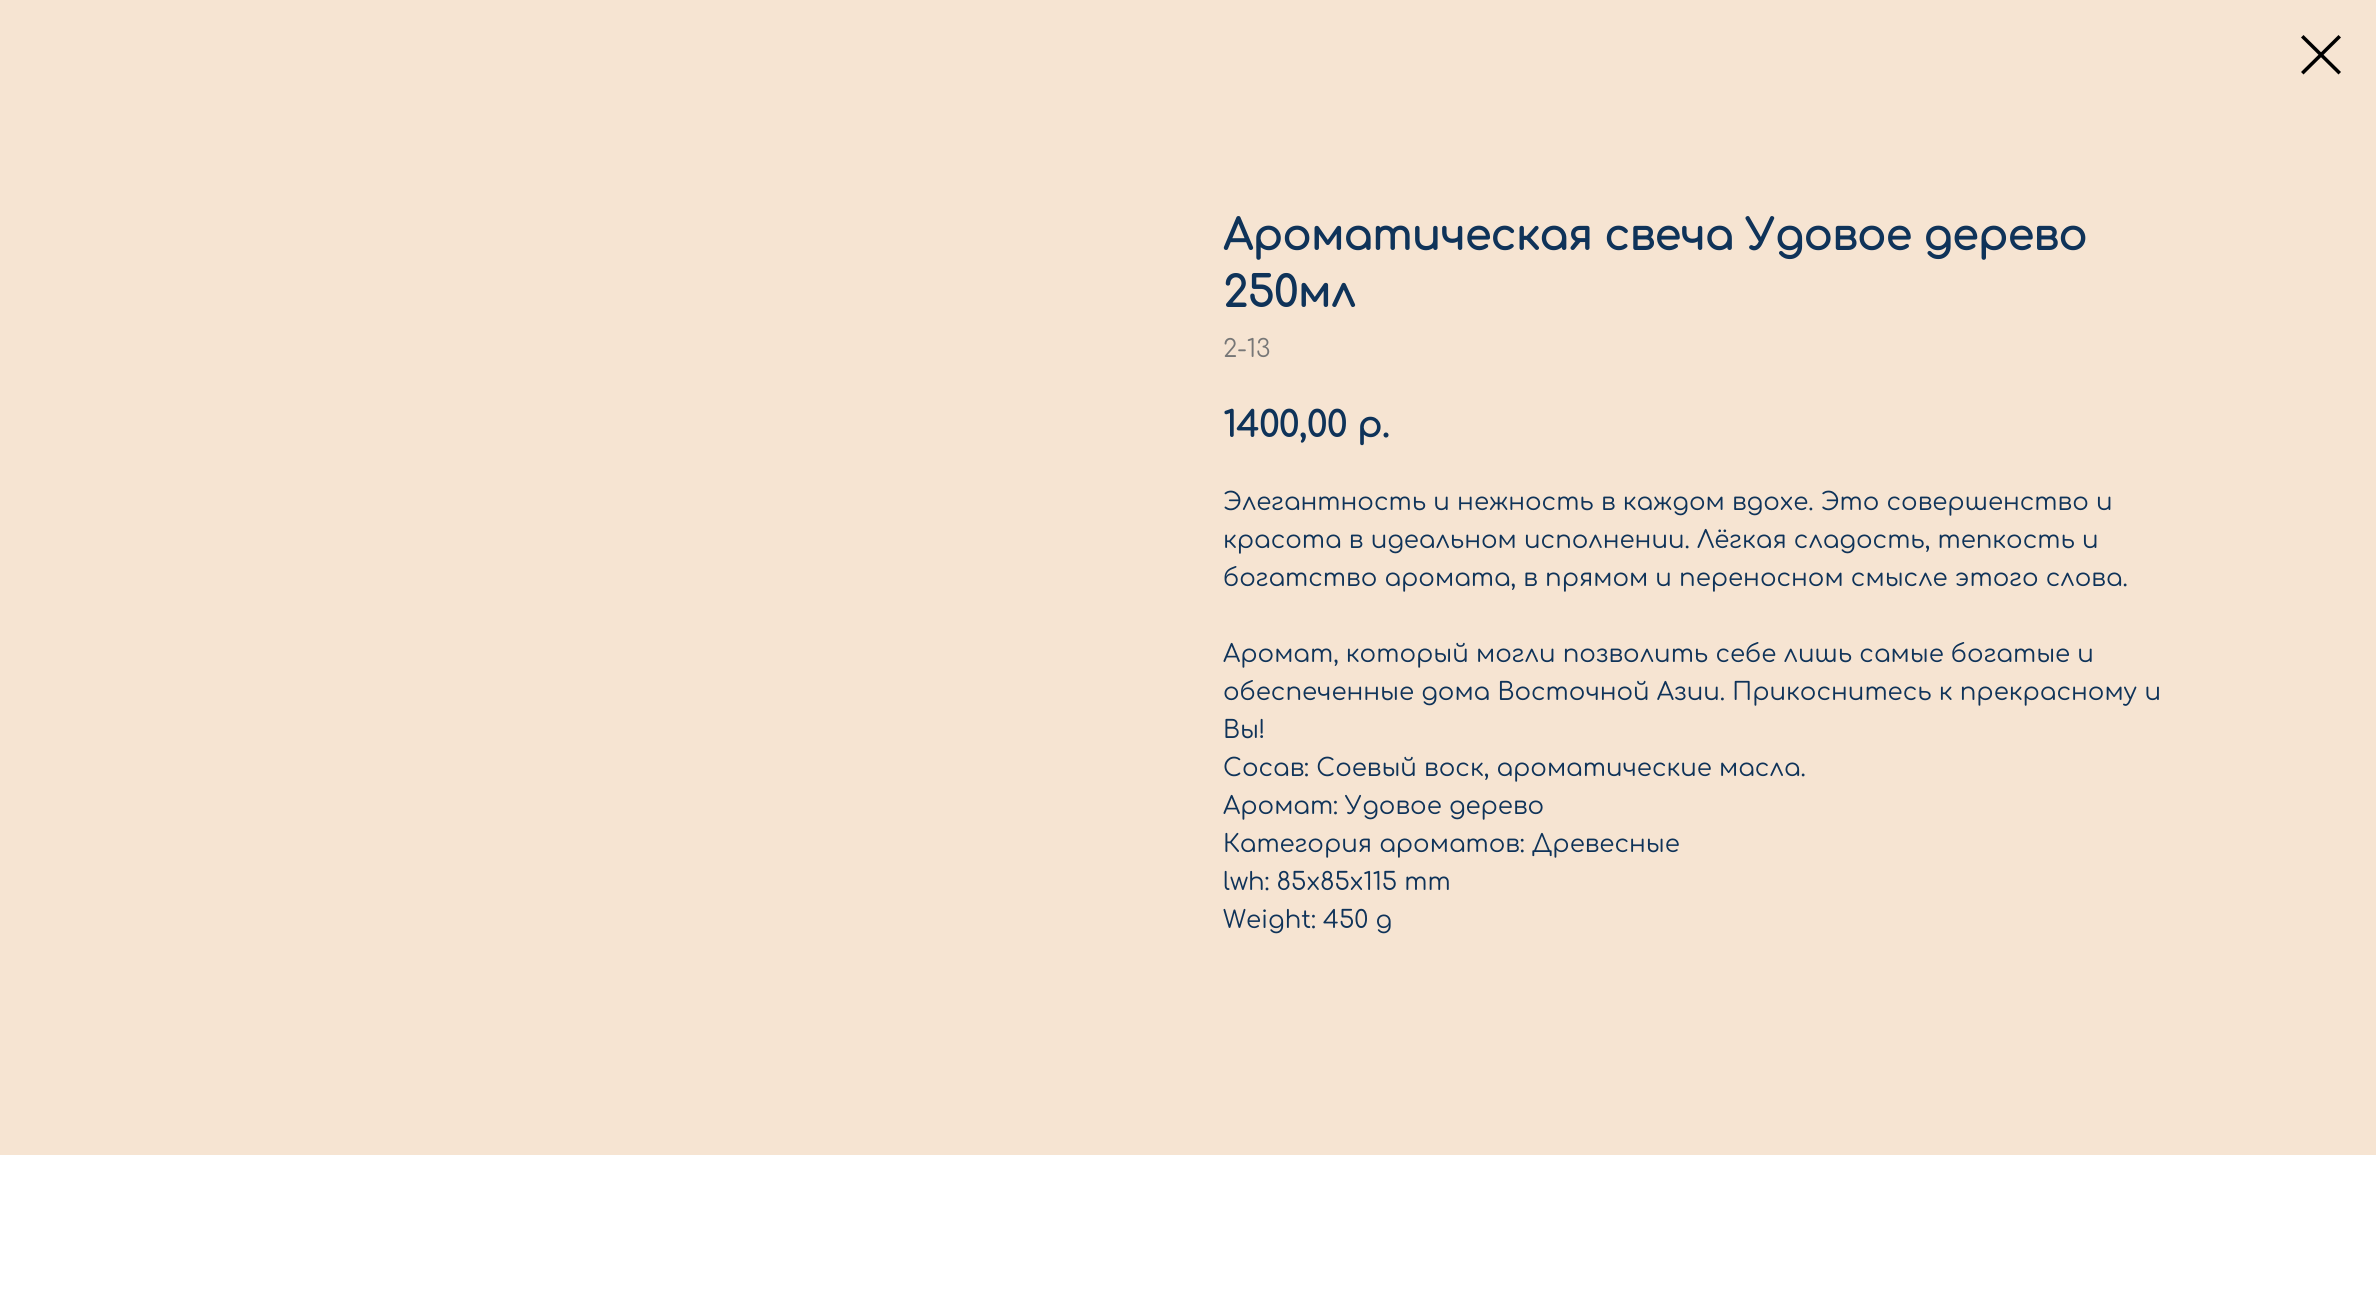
import math
import cairo


def draw(ctx):
	ctx.set_source_rgb(1, 1, 1)
	ctx.paint()
	ctx.set_source_rgb(0.961, 0.894, 0.824)
	ctx.rectangle(0, 0, 2376, 1155)
	ctx.fill()
	ctx.set_source_rgb(0, 0, 0)
	ctx.set_fill_rule(cairo.FILL_RULE_EVEN_ODD)
	ctx.new_path()
	ctx.move_to(2301, 37.5)
	ctx.line_to(2303.5, 35)
	ctx.line_to(2341, 72)
	ctx.line_to(2338.5, 74.5)
	ctx.close_path()
	ctx.fill()
	ctx.new_path()
	ctx.move_to(2338.5, 35)
	ctx.line_to(2341, 37.5)
	ctx.line_to(2303.5, 74.5)
	ctx.line_to(2301, 72)
	ctx.close_path()
	ctx.fill()
	ctx.select_font_face('Comfortaa', cairo.FONT_SLANT_NORMAL, cairo.FONT_WEIGHT_BOLD)
	ctx.set_font_size(42)
	ctx.set_source_rgb(0.059, 0.2, 0.349)
	ctx.move_to(1223, 250)
	ctx.show_text('Ароматическая свеча Удовое дерево')
	ctx.move_to(1223, 307)
	ctx.show_text('250мл')
	ctx.select_font_face('Comfortaa')
	ctx.set_font_size(24.5)
	ctx.set_source_rgb(0.467, 0.467, 0.467)
	ctx.move_to(1223, 357)
	ctx.show_text('2-13')
	ctx.select_font_face('Comfortaa', cairo.FONT_SLANT_NORMAL, cairo.FONT_WEIGHT_BOLD)
	ctx.set_font_size(35)
	ctx.set_source_rgb(0.059, 0.2, 0.349)
	ctx.move_to(1223, 437)
	ctx.show_text('1400,00')
	ctx.move_to(1357, 437)
	ctx.show_text('р.')
	ctx.select_font_face('Comfortaa')
	ctx.set_font_size(24.5)
	for x, y, s in [
		(1223, 510, 'Элегантность и нежность в каждом вдохе. Это совершенство и'),
		(1223, 548, 'красота в идеальном исполнении. Лёгкая сладость, тепкость и'),
		(1223, 586, 'богатство аромата, в прямом и переносном смысле этого слова.'),
		(1223, 662, 'Аромат, который могли позволить себе лишь самые богатые и'),
		(1223, 700, 'обеспеченные дома Восточной Азии. Прикоснитесь к прекрасному и'),
		(1223, 738, 'Вы!'),
		(1223, 776, 'Сосав: Соевый воск, ароматические масла.'),
		(1223, 814, 'Аромат: Удовое дерево'),
		(1223, 852, 'Категория ароматов: Древесные'),
		(1223, 890, 'lwh: 85x85x115 mm'),
		(1223, 928, 'Weight: 450 g'),
	]:
		ctx.move_to(x, y)
		ctx.show_text(s)


surface = cairo.ImageSurface(cairo.FORMAT_RGB24, 2376, 1309)
ctx = cairo.Context(surface)
options = cairo.FontOptions()
options.set_hint_metrics(cairo.HINT_METRICS_OFF)
options.set_hint_style(cairo.HINT_STYLE_NONE)
ctx.set_font_options(options)
ctx.set_miter_limit(4)
draw(ctx)
surface.write_to_png('image.png')
